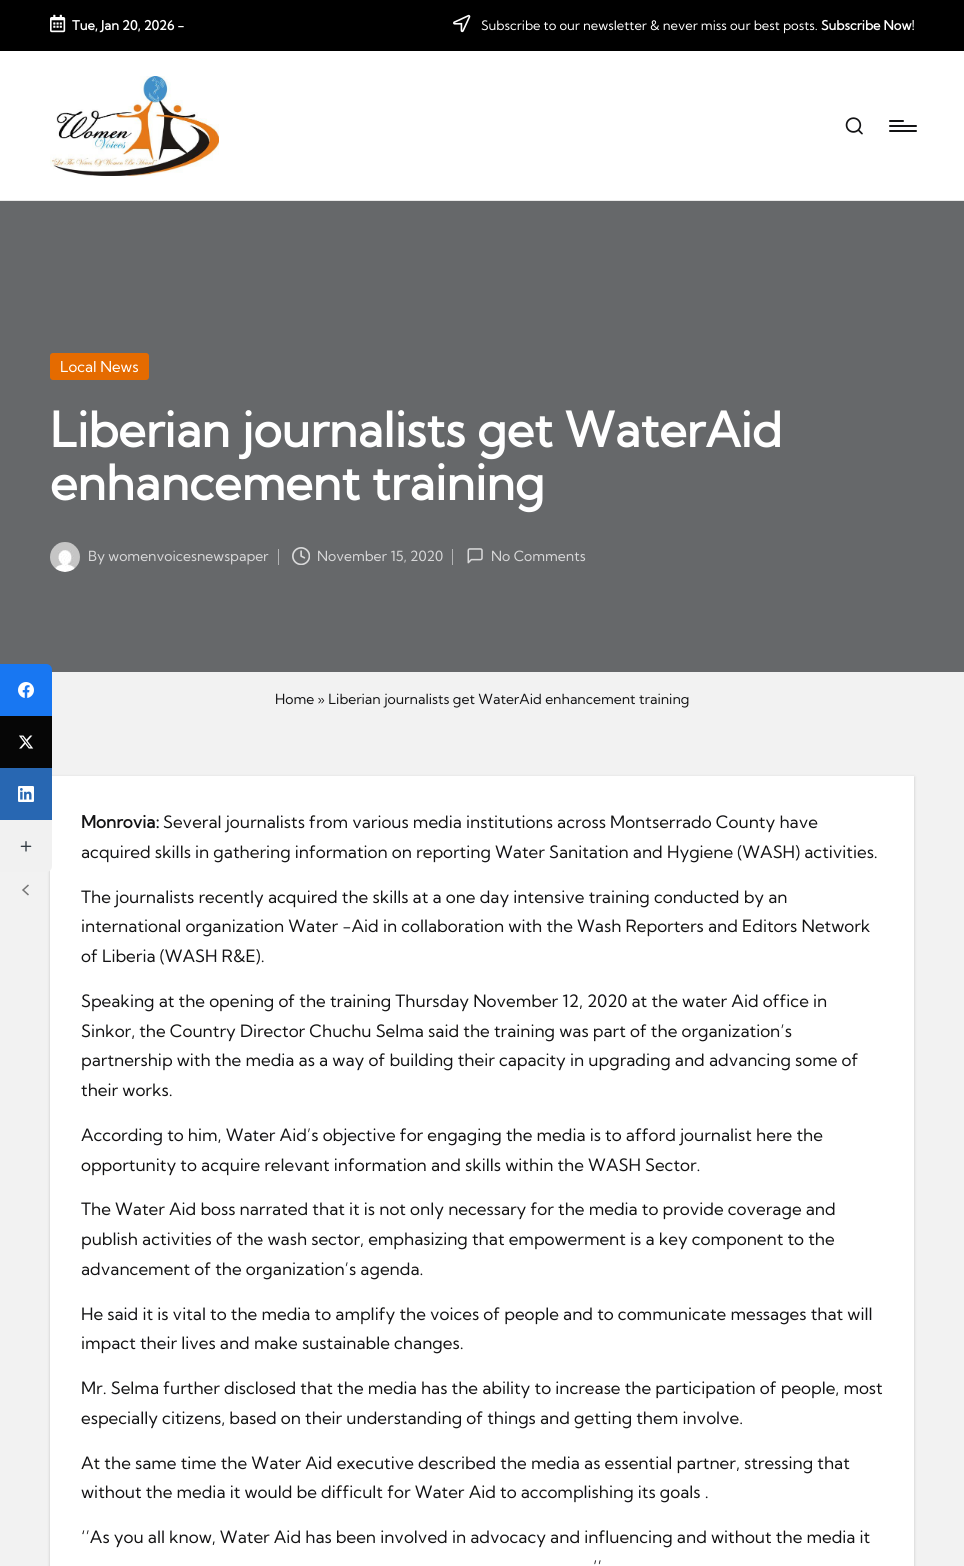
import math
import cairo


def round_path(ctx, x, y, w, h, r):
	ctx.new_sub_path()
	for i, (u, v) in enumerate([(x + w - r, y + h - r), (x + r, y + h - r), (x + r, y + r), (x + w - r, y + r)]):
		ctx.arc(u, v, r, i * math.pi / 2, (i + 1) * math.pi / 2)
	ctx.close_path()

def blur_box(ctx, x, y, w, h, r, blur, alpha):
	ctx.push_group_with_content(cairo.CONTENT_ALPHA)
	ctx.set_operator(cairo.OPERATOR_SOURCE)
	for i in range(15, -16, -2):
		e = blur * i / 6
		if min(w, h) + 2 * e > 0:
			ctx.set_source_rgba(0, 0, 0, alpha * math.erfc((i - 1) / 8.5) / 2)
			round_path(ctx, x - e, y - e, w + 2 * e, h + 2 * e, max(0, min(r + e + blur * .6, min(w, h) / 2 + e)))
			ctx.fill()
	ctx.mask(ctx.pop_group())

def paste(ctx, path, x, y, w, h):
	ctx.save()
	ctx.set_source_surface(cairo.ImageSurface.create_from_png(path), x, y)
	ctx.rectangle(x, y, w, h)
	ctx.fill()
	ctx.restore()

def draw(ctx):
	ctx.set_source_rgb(0.949, 0.949, 0.949)
	ctx.paint()
	ctx.set_source_rgb(0.4, 0.408, 0.416)
	ctx.rectangle(0, 201, 964, 471)
	ctx.fill()
	ctx.set_source_rgb(0.094, 0.467, 0.949)
	ctx.new_path()
	ctx.move_to(0, 664)
	ctx.line_to(46, 664)
	ctx.curve_to(49.5, 664, 52, 666.5, 52, 670)
	ctx.line_to(52, 716)
	ctx.line_to(0, 716)
	ctx.close_path()
	ctx.fill()
	paste(ctx, 'media/1.png', 18, 682, 16, 16)
	ctx.set_source_rgb(0.024, 0.024, 0.024)
	ctx.rectangle(0, 716, 52, 52)
	ctx.fill()
	paste(ctx, 'media/2.png', 19, 735, 15, 14)
	ctx.set_source_rgb(0, 0, 0)
	blur_box(ctx, 50, 777, 864, 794, 0, 1.5, 0.18)
	ctx.set_source_rgb(1, 1, 1)
	ctx.rectangle(50, 776, 864, 790)
	ctx.fill()
	ctx.set_source_rgb(0.157, 0.404, 0.698)
	ctx.rectangle(0, 768, 52, 52)
	ctx.fill()
	paste(ctx, 'media/3.png', 18, 786, 16, 16)
	ctx.set_source_rgb(0.945, 0.945, 0.945)
	ctx.new_path()
	ctx.move_to(0, 820)
	ctx.line_to(52, 820)
	ctx.line_to(52, 866)
	ctx.curve_to(52, 869.5, 49.5, 872, 46, 872)
	ctx.line_to(0, 872)
	ctx.close_path()
	ctx.fill()
	paste(ctx, 'media/4.png', 20, 841, 12, 11)
	ctx.new_path()
	ctx.move_to(28.5, 885)
	ctx.line_to(23, 890)
	ctx.line_to(28.5, 895)
	ctx.set_source_rgb(0.463, 0.463, 0.463)
	ctx.set_line_width(1.5)
	ctx.stroke()
	ctx.set_source_rgb(0, 0, 0)
	ctx.rectangle(0, 0, 964, 51)
	ctx.fill()
	paste(ctx, 'media/5.png', 50, 14, 16, 19)
	ctx.select_font_face('Kumbh Sans', cairo.FONT_SLANT_NORMAL, cairo.FONT_WEIGHT_BOLD)
	ctx.set_font_size(13)
	ctx.set_source_rgb(1, 1, 1)
	ctx.move_to(72, 30)
	ctx.show_text('Tue, Jan 20, 2026 -')
	paste(ctx, 'media/6.png', 453, 14, 18, 19)
	ctx.select_font_face('Kumbh Sans')
	ctx.move_to(481, 30)
	ctx.show_text('Subscribe to our newsletter & never miss our best posts.')
	ctx.select_font_face('Kumbh Sans', cairo.FONT_SLANT_NORMAL, cairo.FONT_WEIGHT_BOLD)
	ctx.move_to(821, 30)
	ctx.show_text('Subscribe Now!')
	ctx.rectangle(0, 51, 964, 149)
	ctx.fill()
	ctx.set_source_rgb(0.914, 0.914, 0.914)
	ctx.rectangle(0, 200, 964, 1)
	ctx.fill()
	paste(ctx, 'media/7.png', 50, 76, 169, 100)
	paste(ctx, 'media/8.png', 845, 117, 18, 18)
	ctx.set_source_rgb(0.075, 0.075, 0.082)
	round_path(ctx, 889, 125, 28, 2, 1)
	ctx.fill()
	round_path(ctx, 889, 120, 15, 2, 1)
	ctx.fill()
	round_path(ctx, 889, 130, 28, 2, 1)
	ctx.fill()
	ctx.set_source_rgb(0.898, 0.42, 0)
	round_path(ctx, 50, 353, 99, 27, 3)
	ctx.fill()
	ctx.select_font_face('Kumbh Sans')
	ctx.set_font_size(15)
	ctx.set_source_rgb(1, 1, 1)
	ctx.move_to(60, 372)
	ctx.show_text('Local News')
	ctx.select_font_face('Kumbh Sans', cairo.FONT_SLANT_NORMAL, cairo.FONT_WEIGHT_BOLD)
	ctx.set_font_size(48)
	ctx.move_to(50, 447)
	ctx.show_text('Liberian journalists get WaterAid')
	ctx.move_to(50, 500)
	ctx.show_text('enhancement training')
	paste(ctx, 'media/9.png', 50, 542, 30, 30)
	ctx.select_font_face('Kumbh Sans')
	ctx.set_font_size(14)
	ctx.set_source_rgb(0.851, 0.851, 0.855)
	ctx.move_to(88, 561)
	ctx.show_text('By womenvoicesnewspaper')
	ctx.set_source_rgb(0.702, 0.706, 0.71)
	ctx.rectangle(278, 549, 1, 16)
	ctx.fill()
	paste(ctx, 'media/10.png', 292, 547, 18, 18)
	ctx.set_source_rgb(0.851, 0.851, 0.855)
	ctx.move_to(317, 561)
	ctx.show_text('November 15, 2020')
	ctx.set_source_rgb(0.702, 0.706, 0.71)
	ctx.rectangle(452, 549, 1, 16)
	ctx.fill()
	paste(ctx, 'media/11.png', 467, 548, 16, 16)
	ctx.set_source_rgb(0.851, 0.851, 0.855)
	ctx.move_to(491, 561)
	ctx.show_text('No Comments')
	ctx.set_source_rgb(0.075, 0.075, 0.082)
	ctx.move_to(275, 704)
	ctx.show_text('Home')
	ctx.move_to(317, 704)
	ctx.show_text('» Liberian journalists get WaterAid enhancement training')
	ctx.select_font_face('Kumbh Sans', cairo.FONT_SLANT_NORMAL, cairo.FONT_WEIGHT_BOLD)
	ctx.set_font_size(17)
	ctx.move_to(81, 828)
	ctx.show_text('Monrovia:')
	ctx.select_font_face('Kumbh Sans')
	for x, y, s in [
		(163, 828, 'Several journalists from various media institutions across Montserrado County have'),
		(81, 858, 'acquired skills in gathering information on reporting Water Sanitation and Hygiene (WASH) activities.'),
		(81, 903, 'The journalists recently acquired the skills at a one day intensive training conducted by an'),
		(81, 932, 'international organization Water -Aid in collaboration with the Wash Reporters and Editors Network'),
		(81, 962, 'of Liberia (WASH R&E).'),
		(81, 1007, 'Speaking at the opening of the training Thursday November 12, 2020 at the water Aid office in'),
		(81, 1037, 'Sinkor, the Country Director Chuchu Selma said the training was part of the organization’s'),
		(81, 1066, 'partnership with the media as a way of building their capacity in upgrading and advancing some of'),
		(81, 1096, 'their works.'),
		(81, 1141, 'According to him, Water Aid’s objective for engaging the media is to afford journalist here the'),
		(81, 1171, 'opportunity to acquire relevant information and skills within the WASH Sector.'),
		(81, 1215, 'The Water Aid boss narrated that it is not only necessary for the media to provide coverage and'),
		(81, 1245, 'publish activities of the wash sector, emphasizing that empowerment is a key component to the'),
		(81, 1275, 'advancement of the organization’s agenda.'),
		(81, 1320, 'He said it is vital to the media to amplify the voices of people and to communicate messages that will'),
		(81, 1349, 'impact their lives and make sustainable changes.'),
		(81, 1394, 'Mr. Selma further disclosed that the media has the ability to increase the participation of people, most'),
		(81, 1424, 'especially citizens, based on their understanding of things and getting them involve.'),
		(81, 1469, 'At the same time the Water Aid executive described the media as essential partner, stressing that'),
		(81, 1498, 'without the media it would be difficult for Water Aid to accomplishing its goals .'),
		(81, 1543, '‘’As you all know, Water Aid has been involved in advocacy and influencing and without the media it'),
		(593, 1573, '’’'),
	]:
		ctx.move_to(x, y)
		ctx.show_text(s)


surface = cairo.ImageSurface(cairo.FORMAT_RGB24, 964, 1566)
ctx = cairo.Context(surface)
options = cairo.FontOptions()
options.set_hint_metrics(cairo.HINT_METRICS_OFF)
options.set_hint_style(cairo.HINT_STYLE_NONE)
ctx.set_font_options(options)
ctx.set_miter_limit(4)
draw(ctx)
surface.write_to_png('image.png')
